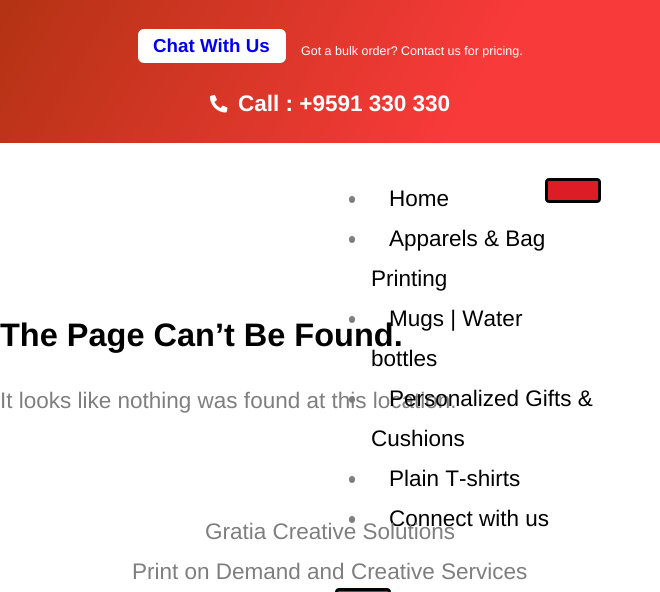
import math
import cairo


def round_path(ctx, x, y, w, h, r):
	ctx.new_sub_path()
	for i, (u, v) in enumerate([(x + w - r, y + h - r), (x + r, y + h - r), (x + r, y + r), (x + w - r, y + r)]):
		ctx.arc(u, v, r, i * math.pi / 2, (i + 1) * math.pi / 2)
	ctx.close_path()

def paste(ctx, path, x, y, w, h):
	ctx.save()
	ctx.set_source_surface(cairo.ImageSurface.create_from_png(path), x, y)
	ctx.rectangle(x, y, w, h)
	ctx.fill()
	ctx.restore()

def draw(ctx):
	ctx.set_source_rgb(1, 1, 1)
	ctx.paint()
	gradient = cairo.LinearGradient(52, -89, 608, 232)
	gradient.add_color_stop_rgba(0, 0.702, 0.2, 0.078, 1)
	gradient.add_color_stop_rgba(0.72, 0.976, 0.227, 0.227, 1)
	ctx.set_source(gradient)
	ctx.rectangle(0, 0, 660, 143)
	ctx.fill()
	ctx.set_source_rgb(1, 1, 1)
	round_path(ctx, 138, 29, 148, 34, 6)
	ctx.fill()
	ctx.select_font_face('Liberation Sans', cairo.FONT_SLANT_NORMAL, cairo.FONT_WEIGHT_BOLD)
	ctx.set_font_size(18.75)
	ctx.set_source_rgb(0, 0, 0.933)
	ctx.move_to(153, 52)
	ctx.show_text('Chat With Us')
	ctx.select_font_face('Liberation Sans')
	ctx.set_font_size(12.5)
	ctx.set_source_rgb(1, 1, 1)
	ctx.move_to(301, 55)
	ctx.show_text('Got a bulk order? Contact us for pricing.')
	paste(ctx, 'media/1.png', 210, 95, 18, 18)
	ctx.select_font_face('Liberation Sans', cairo.FONT_SLANT_NORMAL, cairo.FONT_WEIGHT_BOLD)
	ctx.set_font_size(22.5)
	ctx.move_to(238, 111)
	ctx.show_text('Call : +9591 330 330')
	ctx.set_source_rgb(0.867, 0.114, 0.149)
	round_path(ctx, 546.5, 179.5, 53, 22, 2.5)
	ctx.fill_preserve()
	ctx.set_source_rgb(0, 0, 0)
	ctx.set_line_width(3)
	ctx.stroke()
	ctx.set_source_rgb(0.494, 0.494, 0.494)
	round_path(ctx, 349, 196, 6, 7, 3)
	ctx.fill()
	ctx.select_font_face('Liberation Sans')
	ctx.set_source_rgb(0, 0, 0)
	ctx.move_to(389, 206)
	ctx.show_text('Home')
	ctx.set_source_rgb(0.494, 0.494, 0.494)
	round_path(ctx, 349, 236, 6, 7, 3)
	ctx.fill()
	ctx.set_source_rgb(0, 0, 0)
	ctx.move_to(389, 246)
	ctx.show_text('Apparels & Bag')
	ctx.move_to(371, 286)
	ctx.show_text('Printing')
	ctx.select_font_face('Liberation Sans', cairo.FONT_SLANT_NORMAL, cairo.FONT_WEIGHT_BOLD)
	ctx.set_font_size(32.5)
	ctx.move_to(0, 346)
	ctx.show_text('The Page Can’t Be Found.')
	ctx.set_source_rgb(0.494, 0.494, 0.494)
	round_path(ctx, 349, 316, 6, 7, 3)
	ctx.fill()
	ctx.select_font_face('Liberation Sans')
	ctx.set_font_size(22.5)
	ctx.set_source_rgb(0, 0, 0)
	ctx.move_to(389, 326)
	ctx.show_text('Mugs | Water')
	ctx.move_to(371, 366)
	ctx.show_text('bottles')
	ctx.set_source_rgb(0.494, 0.494, 0.494)
	round_path(ctx, 349, 396, 6, 7, 3)
	ctx.fill()
	ctx.move_to(0, 408)
	ctx.show_text('It looks like nothing was found at this location.')
	ctx.set_source_rgb(0, 0, 0)
	ctx.move_to(389, 406)
	ctx.show_text('Personalized Gifts &')
	ctx.move_to(371, 446)
	ctx.show_text('Cushions')
	ctx.set_source_rgb(0.494, 0.494, 0.494)
	round_path(ctx, 349, 476, 6, 7, 3)
	ctx.fill()
	ctx.set_source_rgb(0, 0, 0)
	ctx.move_to(389, 486)
	ctx.show_text('Plain T-shirts')
	ctx.set_source_rgb(0.494, 0.494, 0.494)
	round_path(ctx, 349, 516, 6, 7, 3)
	ctx.fill()
	ctx.set_source_rgb(0, 0, 0)
	ctx.move_to(389, 526)
	ctx.show_text('Connect with us')
	ctx.set_source_rgb(0.867, 0.114, 0.149)
	round_path(ctx, 336.5, 589.5, 53, 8, 2.5)
	ctx.fill_preserve()
	ctx.set_source_rgb(0, 0, 0)
	ctx.stroke()
	ctx.set_source_rgb(0.494, 0.494, 0.494)
	ctx.move_to(205, 539)
	ctx.show_text('Gratia Creative Solutions')
	ctx.move_to(132, 579)
	ctx.show_text('Print on Demand and Creative Services')


surface = cairo.ImageSurface(cairo.FORMAT_RGB24, 660, 592)
ctx = cairo.Context(surface)
options = cairo.FontOptions()
options.set_hint_metrics(cairo.HINT_METRICS_OFF)
options.set_hint_style(cairo.HINT_STYLE_NONE)
ctx.set_font_options(options)
ctx.set_miter_limit(4)
draw(ctx)
surface.write_to_png('image.png')
